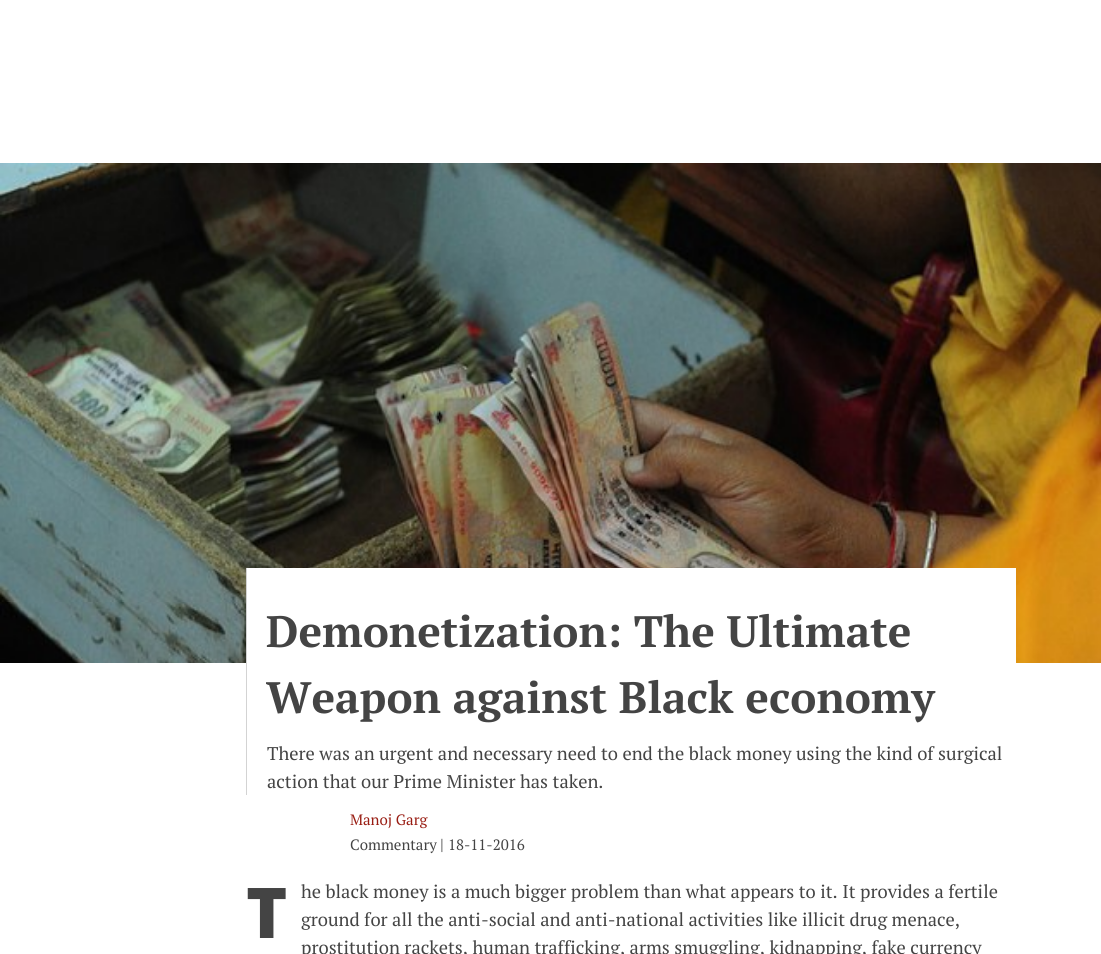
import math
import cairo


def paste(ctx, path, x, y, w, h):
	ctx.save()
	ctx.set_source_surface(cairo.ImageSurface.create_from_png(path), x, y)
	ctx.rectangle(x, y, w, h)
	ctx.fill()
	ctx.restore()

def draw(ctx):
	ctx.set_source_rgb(1, 1, 1)
	ctx.paint()
	paste(ctx, 'media/1.png', 0, 163, 1101, 500)
	ctx.set_source_rgb(1, 1, 1)
	ctx.rectangle(247, 568, 769, 95)
	ctx.fill()
	ctx.set_source_rgb(0.827, 0.827, 0.827)
	ctx.rectangle(246, 568, 1, 227)
	ctx.fill()
	ctx.select_font_face('PT Serif', cairo.FONT_SLANT_NORMAL, cairo.FONT_WEIGHT_BOLD)
	ctx.set_font_size(44)
	ctx.set_source_rgb(0.267, 0.267, 0.267)
	ctx.move_to(266, 647)
	ctx.show_text('Demonetization: The Ultimate')
	ctx.move_to(266, 713)
	ctx.show_text('Weapon against Black economy')
	ctx.select_font_face('PT Serif')
	ctx.set_font_size(18.4)
	ctx.move_to(267, 760)
	ctx.show_text('There was an urgent and necessary need to end the black money using the kind of surgical')
	ctx.move_to(267, 788)
	ctx.show_text('action that our Prime Minister has taken.')
	ctx.set_font_size(15)
	ctx.set_source_rgb(0.6, 0.114, 0.078)
	ctx.move_to(350, 825)
	ctx.show_text('Manoj Garg')
	ctx.set_source_rgb(0.267, 0.267, 0.267)
	ctx.move_to(350, 850)
	ctx.show_text('Commentary')
	ctx.set_font_size(16)
	ctx.move_to(440, 850)
	ctx.show_text('|')
	ctx.set_font_size(15)
	ctx.move_to(448, 850)
	ctx.show_text('18-11-2016')
	ctx.select_font_face('Noto Sans Black')
	ctx.set_font_size(70)
	ctx.move_to(246, 938)
	ctx.show_text('T')
	ctx.select_font_face('PT Serif')
	ctx.set_font_size(18.4)
	for x, y, s in [
		(301, 898, 'he black money is a much bigger problem than what appears to it. It provides a fertile'),
		(301, 926, 'ground for all the anti-social and anti-national activities like illicit drug menace,'),
		(301, 954, 'prostitution rackets, human trafficking, arms smuggling, kidnapping, fake currency'),
	]:
		ctx.move_to(x, y)
		ctx.show_text(s)


surface = cairo.ImageSurface(cairo.FORMAT_RGB24, 1101, 954)
ctx = cairo.Context(surface)
options = cairo.FontOptions()
options.set_hint_metrics(cairo.HINT_METRICS_OFF)
options.set_hint_style(cairo.HINT_STYLE_NONE)
ctx.set_font_options(options)
ctx.set_miter_limit(4)
draw(ctx)
surface.write_to_png('image.png')
